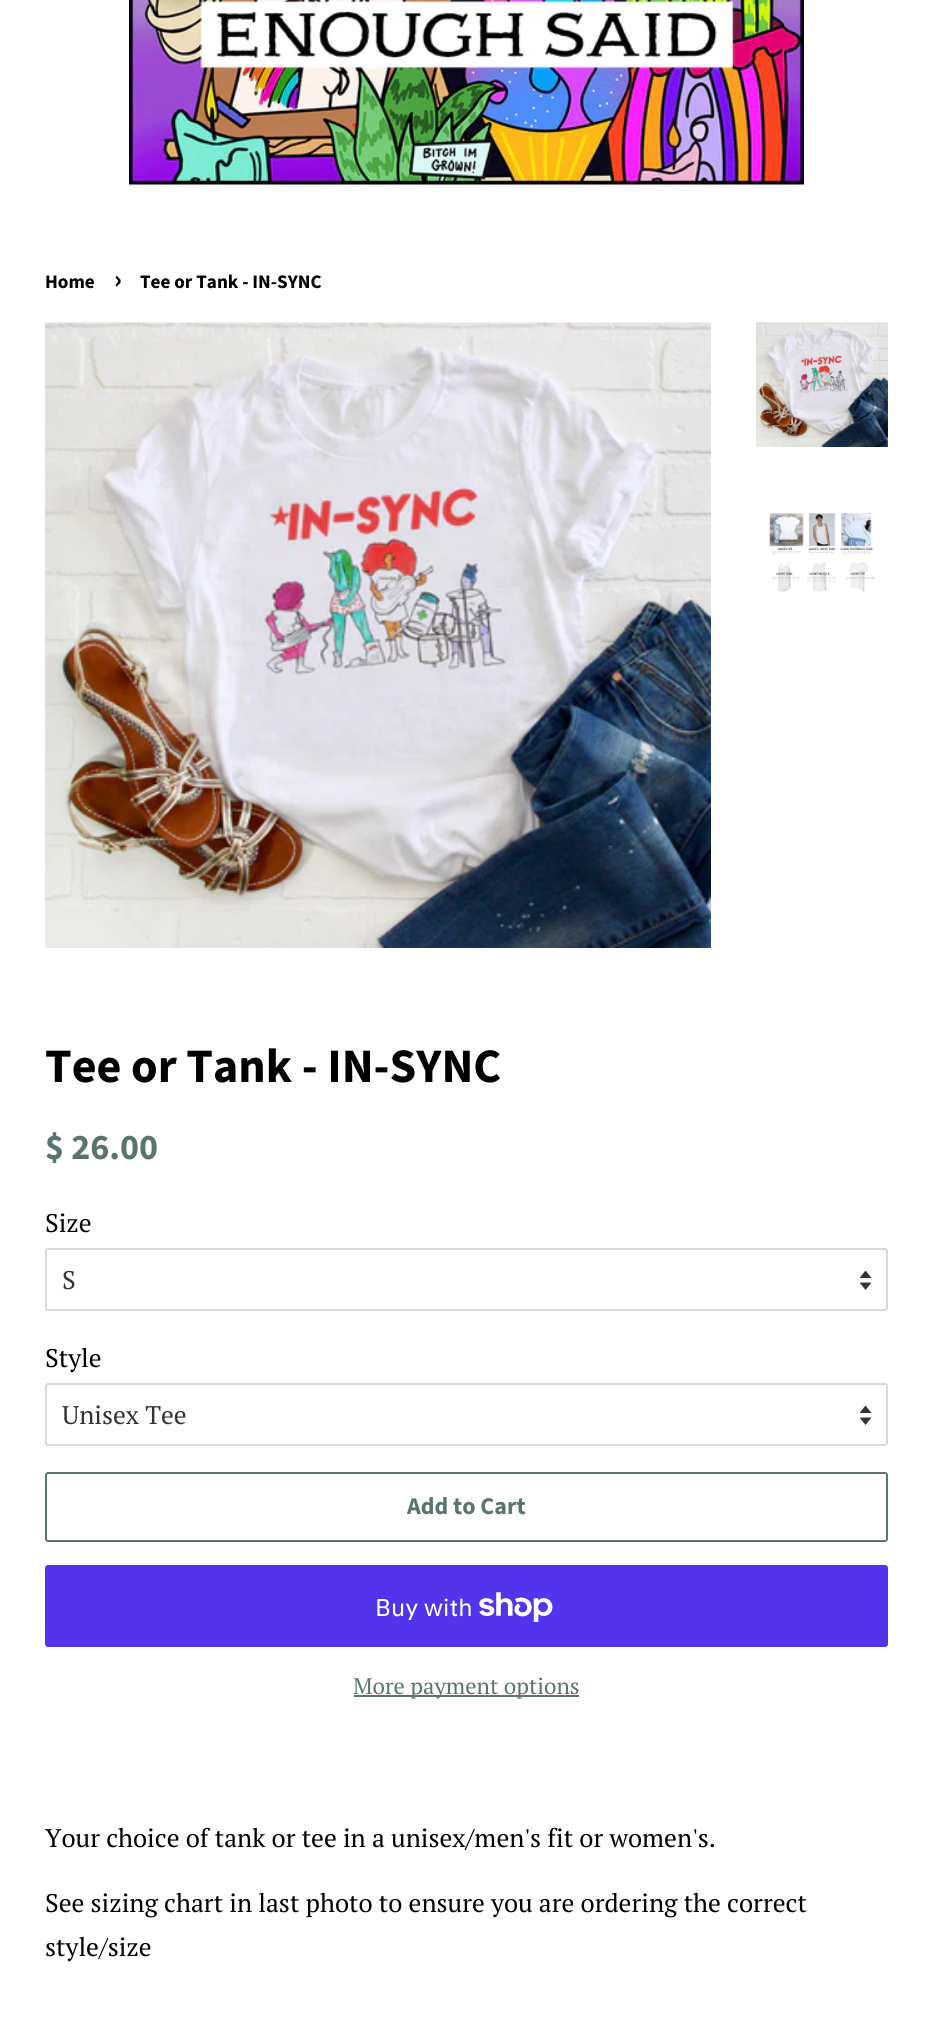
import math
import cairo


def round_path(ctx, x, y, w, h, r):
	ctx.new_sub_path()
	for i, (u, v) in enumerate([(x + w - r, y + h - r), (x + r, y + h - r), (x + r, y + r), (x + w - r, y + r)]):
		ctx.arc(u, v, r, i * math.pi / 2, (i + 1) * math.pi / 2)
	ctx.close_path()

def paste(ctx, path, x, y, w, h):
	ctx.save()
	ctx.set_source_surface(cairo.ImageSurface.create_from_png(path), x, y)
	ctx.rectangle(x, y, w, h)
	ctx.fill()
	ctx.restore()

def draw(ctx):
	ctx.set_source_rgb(1, 1, 1)
	ctx.paint()
	paste(ctx, 'media/1.png', 129, 0, 675, 185)
	ctx.select_font_face('Source Sans Pro', cairo.FONT_SLANT_NORMAL, cairo.FONT_WEIGHT_BOLD)
	ctx.set_font_size(19.1)
	ctx.set_source_rgb(0, 0, 0)
	ctx.move_to(45, 288)
	ctx.show_text('Home')
	ctx.set_font_size(27)
	ctx.move_to(114, 288)
	ctx.show_text('›')
	ctx.set_font_size(19.1)
	ctx.move_to(140, 288)
	ctx.show_text('Tee or Tank - IN-SYNC')
	paste(ctx, 'media/2.png', 45, 322, 666, 626)
	paste(ctx, 'media/3.png', 756, 322, 132, 125)
	paste(ctx, 'media/4.png', 769, 513, 107, 79)
	ctx.set_font_size(48)
	ctx.move_to(45, 1082)
	ctx.show_text('Tee or Tank - IN-SYNC')
	ctx.set_font_size(36)
	ctx.set_source_rgb(0.349, 0.459, 0.435)
	ctx.move_to(45, 1159)
	ctx.show_text('$ 26.00')
	ctx.select_font_face('PT Serif')
	ctx.set_font_size(25.5)
	ctx.set_source_rgb(0, 0, 0)
	ctx.move_to(45, 1232)
	ctx.show_text('Size')
	paste(ctx, 'media/5.png', 860, 1271, 12, 19)
	round_path(ctx, 46, 1249, 841, 61, 2)
	ctx.set_source_rgb(0.851, 0.851, 0.851)
	ctx.stroke()
	ctx.set_source_rgb(0.2, 0.2, 0.2)
	ctx.move_to(62, 1289)
	ctx.show_text('S')
	ctx.set_source_rgb(0, 0, 0)
	ctx.move_to(45, 1367)
	ctx.show_text('Style')
	paste(ctx, 'media/5.png', 860, 1406, 12, 19)
	round_path(ctx, 46, 1384, 841, 61, 2)
	ctx.set_source_rgb(0.851, 0.851, 0.851)
	ctx.stroke()
	ctx.set_source_rgb(0.2, 0.2, 0.2)
	ctx.move_to(62, 1424)
	ctx.show_text('Unisex Tee')
	round_path(ctx, 46, 1473, 841, 68, 2)
	ctx.set_source_rgb(0.349, 0.459, 0.435)
	ctx.stroke()
	ctx.select_font_face('Source Sans Pro', cairo.FONT_SLANT_NORMAL, cairo.FONT_WEIGHT_BOLD)
	ctx.set_font_size(24)
	ctx.move_to(407, 1514)
	ctx.show_text('Add to Cart')
	ctx.set_source_rgb(0.329, 0.2, 0.922)
	round_path(ctx, 45, 1565, 843, 82, 3)
	ctx.fill()
	ctx.select_font_face('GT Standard')
	ctx.set_source_rgb(1, 1, 1)
	ctx.move_to(375, 1616)
	ctx.show_text('Buy with')
	paste(ctx, 'media/6.png', 479, 1592, 74, 30)
	ctx.set_source_rgb(0.349, 0.459, 0.435)
	ctx.rectangle(354, 1695, 225, 2)
	ctx.fill()
	ctx.select_font_face('PT Serif')
	ctx.set_font_size(22.5)
	ctx.move_to(353, 1694)
	ctx.show_text('More payment options')
	ctx.set_font_size(25.5)
	ctx.set_source_rgb(0, 0, 0)
	for x, y, s in [
		(45, 1847, 'Your choice of tank or tee in a unisex/men\'s fit or women\'s.'),
		(45, 1912, 'See sizing chart in last photo to ensure you are ordering the correct'),
		(45, 1956, 'style/size'),
	]:
		ctx.move_to(x, y)
		ctx.show_text(s)


surface = cairo.ImageSurface(cairo.FORMAT_RGB24, 932, 2044)
ctx = cairo.Context(surface)
options = cairo.FontOptions()
options.set_hint_metrics(cairo.HINT_METRICS_OFF)
options.set_hint_style(cairo.HINT_STYLE_NONE)
ctx.set_font_options(options)
ctx.set_miter_limit(4)
draw(ctx)
surface.write_to_png('image.png')
